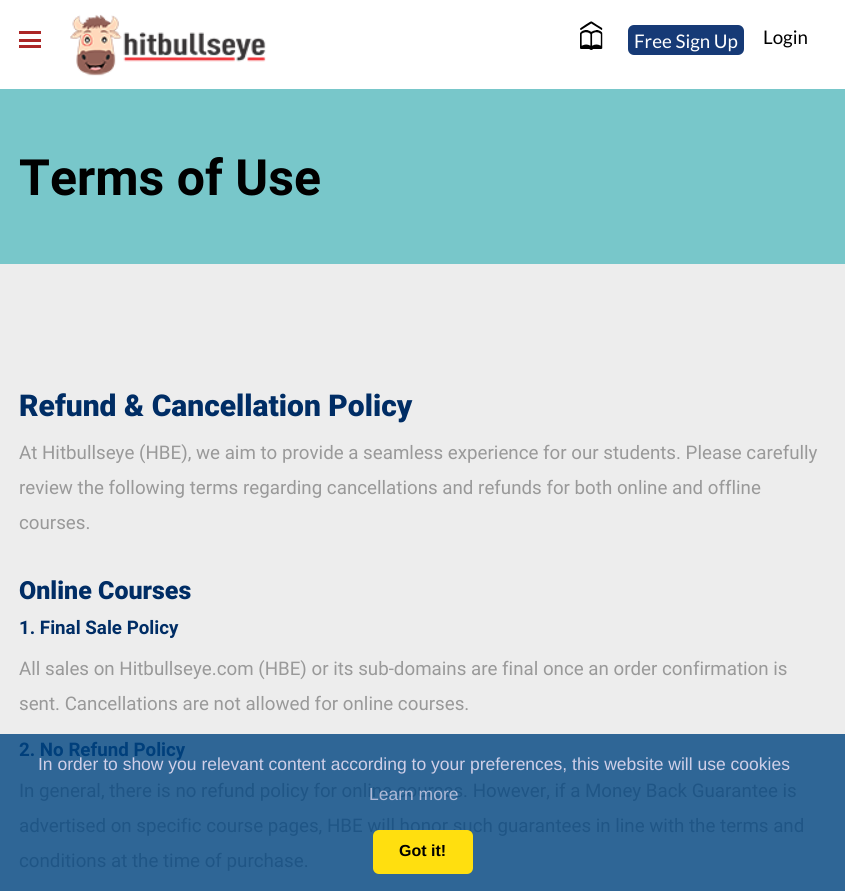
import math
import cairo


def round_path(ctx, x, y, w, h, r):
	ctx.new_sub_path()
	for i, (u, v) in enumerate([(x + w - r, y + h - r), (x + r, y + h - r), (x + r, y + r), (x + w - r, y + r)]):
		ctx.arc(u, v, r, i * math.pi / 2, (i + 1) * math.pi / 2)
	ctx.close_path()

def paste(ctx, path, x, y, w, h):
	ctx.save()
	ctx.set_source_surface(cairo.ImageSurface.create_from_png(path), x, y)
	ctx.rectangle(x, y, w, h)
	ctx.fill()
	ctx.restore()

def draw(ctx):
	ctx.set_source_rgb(1, 1, 1)
	ctx.paint()
	ctx.set_source_rgb(0.675, 0.149, 0.149)
	ctx.rectangle(19, 31, 22, 3)
	ctx.rectangle(19, 39, 22, 3)
	ctx.rectangle(19, 45, 22, 3)
	ctx.fill()
	paste(ctx, 'media/1.png', 70, 14, 196, 62)
	paste(ctx, 'media/2.png', 580, 21, 23, 29)
	ctx.set_source_rgb(0.086, 0.227, 0.463)
	round_path(ctx, 628, 25, 116, 30, 6)
	ctx.fill()
	ctx.select_font_face('Lato')
	ctx.set_font_size(18.75)
	ctx.set_source_rgb(1, 1, 1)
	ctx.move_to(634, 48)
	ctx.show_text('Free Sign Up')
	ctx.set_source_rgb(0, 0, 0)
	ctx.move_to(763, 44)
	ctx.show_text('Login')
	ctx.set_source_rgb(0.471, 0.78, 0.792)
	ctx.rectangle(0, 89, 845, 175)
	ctx.fill()
	ctx.select_font_face('Roboto', cairo.FONT_SLANT_NORMAL, cairo.FONT_WEIGHT_BOLD)
	ctx.set_font_size(50)
	ctx.set_source_rgb(0, 0, 0)
	ctx.move_to(19, 195)
	ctx.show_text('Terms of Use')
	ctx.set_source_rgb(0.929, 0.929, 0.929)
	ctx.rectangle(0, 264, 845, 470)
	ctx.fill()
	ctx.set_source_rgb(0.184, 0.4, 0.588)
	ctx.rectangle(0, 734, 845, 157)
	ctx.fill()
	ctx.select_font_face('Roboto Black')
	ctx.set_font_size(30)
	ctx.set_source_rgb(0, 0.176, 0.396)
	ctx.move_to(19, 416)
	ctx.show_text('Refund & Cancellation Policy')
	ctx.select_font_face('Roboto')
	ctx.set_font_size(18.75)
	ctx.set_source_rgb(0.6, 0.6, 0.6)
	for x, y, s in [
		(19, 459, 'At Hitbullseye (HBE), we aim to provide a seamless experience for our students. Please carefully'),
		(19, 494, 'review the following terms regarding cancellations and refunds for both online and offline'),
		(19, 529, 'courses.'),
	]:
		ctx.move_to(x, y)
		ctx.show_text(s)
	ctx.select_font_face('Roboto Black')
	ctx.set_font_size(25)
	ctx.set_source_rgb(0, 0.176, 0.396)
	ctx.move_to(19, 599)
	ctx.show_text('Online Courses')
	ctx.select_font_face('Roboto', cairo.FONT_SLANT_NORMAL, cairo.FONT_WEIGHT_BOLD)
	ctx.set_font_size(18.75)
	ctx.move_to(19, 634)
	ctx.show_text('1. Final Sale Policy')
	ctx.select_font_face('Roboto')
	ctx.set_source_rgb(0.6, 0.6, 0.6)
	ctx.move_to(19, 675)
	ctx.show_text('All sales on Hitbullseye.com (HBE) or its sub-domains are final once an order confirmation is')
	ctx.move_to(19, 710)
	ctx.show_text('sent. Cancellations are not allowed for online courses.')
	ctx.select_font_face('Roboto', cairo.FONT_SLANT_NORMAL, cairo.FONT_WEIGHT_BOLD)
	ctx.set_source_rgb(0, 0.247, 0.482)
	ctx.move_to(19, 756)
	ctx.show_text('2. No Refund Policy')
	ctx.select_font_face('Roboto')
	ctx.set_source_rgb(0.122, 0.333, 0.522)
	for x, y, s in [
		(19, 797, 'In general, there is no refund policy for online courses. However, if a Money Back Guarantee is'),
		(19, 832, 'advertised on specific course pages, HBE will honor such guarantees in line with the terms and'),
		(19, 867, 'conditions at the time of purchase.'),
	]:
		ctx.move_to(x, y)
		ctx.show_text(s)
	ctx.select_font_face('Liberation Sans')
	ctx.set_font_size(17.5)
	ctx.set_source_rgb(0.812, 0.812, 0.91)
	ctx.move_to(38, 770)
	ctx.show_text('In order to show you relevant content according to your preferences, this website will use cookies')
	ctx.set_source_rgb(0.682, 0.725, 0.843)
	ctx.move_to(369, 800)
	ctx.show_text('Learn more')
	ctx.set_source_rgb(1, 0.875, 0.059)
	round_path(ctx, 373, 830, 100, 44, 6)
	ctx.fill()
	ctx.select_font_face('Liberation Sans', cairo.FONT_SLANT_NORMAL, cairo.FONT_WEIGHT_BOLD)
	ctx.set_font_size(16)
	ctx.set_source_rgb(0, 0, 0)
	ctx.move_to(399, 856)
	ctx.show_text('Got it!')


surface = cairo.ImageSurface(cairo.FORMAT_RGB24, 845, 891)
ctx = cairo.Context(surface)
options = cairo.FontOptions()
options.set_hint_metrics(cairo.HINT_METRICS_OFF)
options.set_hint_style(cairo.HINT_STYLE_NONE)
ctx.set_font_options(options)
ctx.set_miter_limit(4)
draw(ctx)
surface.write_to_png('image.png')
